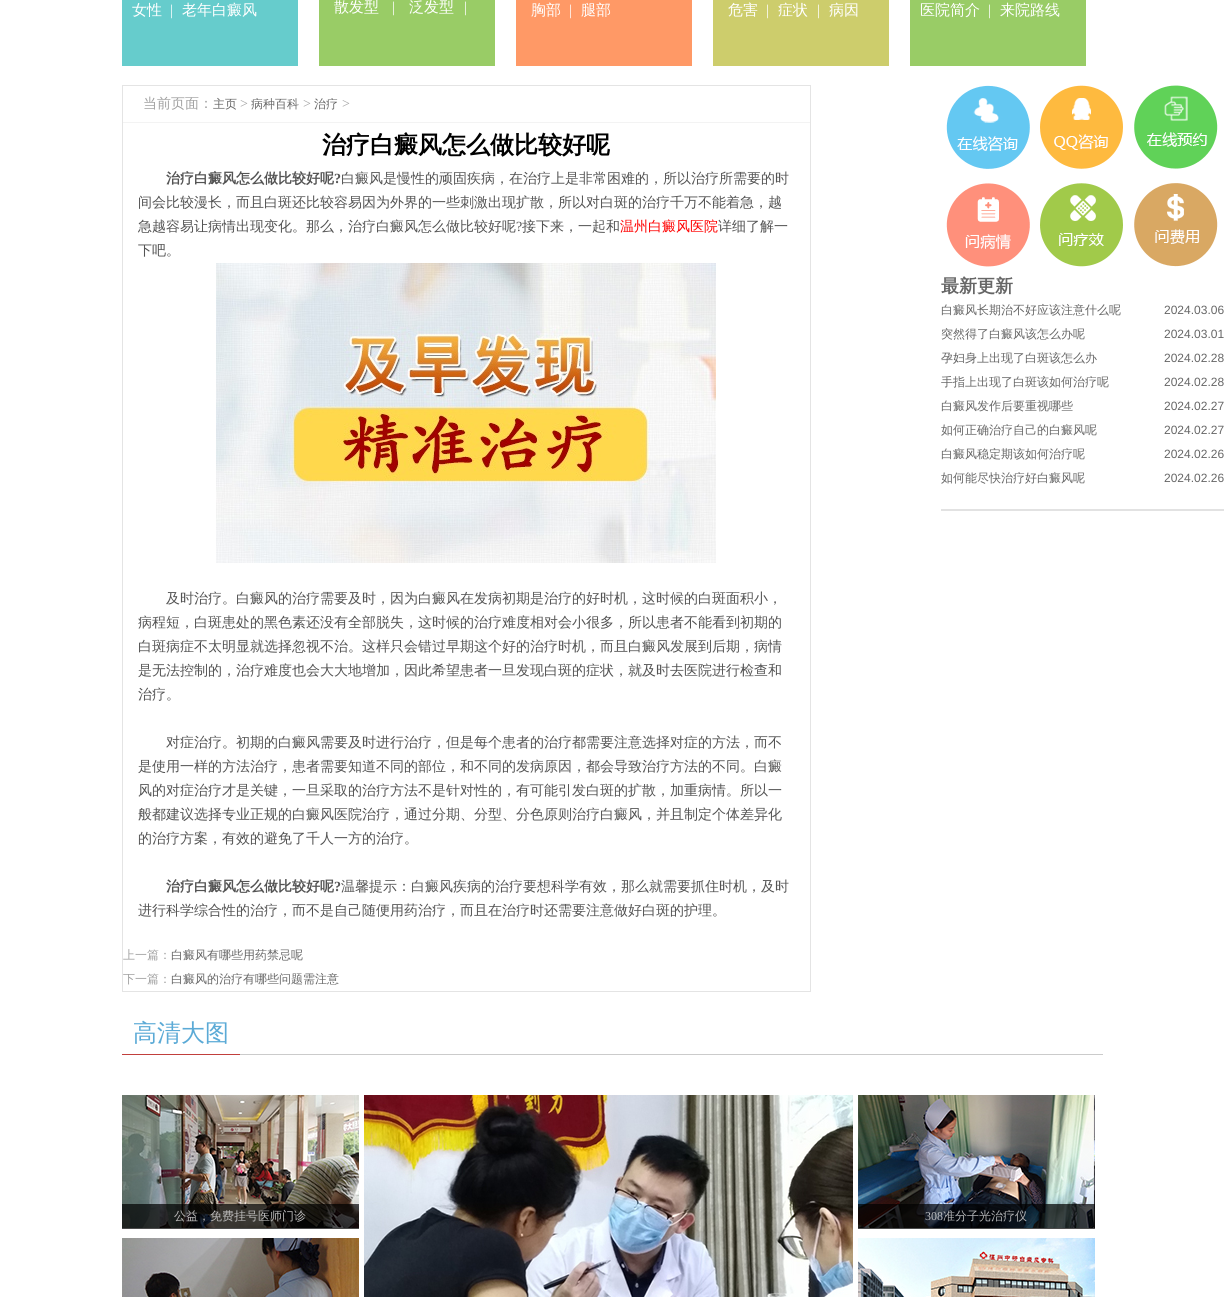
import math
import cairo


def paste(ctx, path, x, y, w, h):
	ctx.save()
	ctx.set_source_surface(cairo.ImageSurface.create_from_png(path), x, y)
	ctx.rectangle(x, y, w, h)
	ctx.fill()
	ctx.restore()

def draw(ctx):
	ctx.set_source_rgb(1, 1, 1)
	ctx.paint()
	ctx.set_source_rgb(0.4, 0.8, 0.8)
	ctx.rectangle(122, 0, 176, 66)
	ctx.fill()
	ctx.select_font_face('WenQuanYi Zen Hei Medium')
	ctx.set_font_size(15)
	ctx.set_source_rgb(1, 1, 1)
	ctx.move_to(132, 15)
	ctx.show_text('女性')
	ctx.select_font_face('Liberation Serif')
	ctx.move_to(170, 15)
	ctx.show_text('|')
	ctx.select_font_face('WenQuanYi Zen Hei Medium')
	ctx.move_to(182, 15)
	ctx.show_text('老年白癜风')
	ctx.set_source_rgb(0.6, 0.8, 0.4)
	ctx.rectangle(319, 0, 176, 66)
	ctx.fill()
	ctx.set_source_rgb(1, 1, 1)
	ctx.move_to(334, 12)
	ctx.show_text('散发型')
	ctx.select_font_face('Liberation Serif')
	ctx.move_to(392, 12)
	ctx.show_text('|')
	ctx.select_font_face('WenQuanYi Zen Hei Medium')
	ctx.move_to(409, 12)
	ctx.show_text('泛发型')
	ctx.select_font_face('Liberation Serif')
	ctx.move_to(464, 12)
	ctx.show_text('|')
	ctx.set_source_rgb(1, 0.6, 0.4)
	ctx.rectangle(516, 0, 176, 66)
	ctx.fill()
	ctx.select_font_face('WenQuanYi Zen Hei Medium')
	ctx.set_source_rgb(1, 1, 1)
	ctx.move_to(531, 15)
	ctx.show_text('胸部')
	ctx.select_font_face('Liberation Serif')
	ctx.move_to(569, 15)
	ctx.show_text('|')
	ctx.select_font_face('WenQuanYi Zen Hei Medium')
	ctx.move_to(581, 15)
	ctx.show_text('腿部')
	ctx.set_source_rgb(0.804, 0.804, 0.424)
	ctx.rectangle(713, 0, 176, 66)
	ctx.fill()
	ctx.set_source_rgb(1, 1, 1)
	ctx.move_to(728, 15)
	ctx.show_text('危害')
	ctx.select_font_face('Liberation Serif')
	ctx.move_to(766, 15)
	ctx.show_text('|')
	ctx.select_font_face('WenQuanYi Zen Hei Medium')
	ctx.move_to(778, 15)
	ctx.show_text('症状')
	ctx.select_font_face('Liberation Serif')
	ctx.move_to(817, 15)
	ctx.show_text('|')
	ctx.select_font_face('WenQuanYi Zen Hei Medium')
	ctx.move_to(829, 15)
	ctx.show_text('病因')
	ctx.set_source_rgb(0.6, 0.8, 0.4)
	ctx.rectangle(910, 0, 176, 66)
	ctx.fill()
	ctx.set_source_rgb(1, 1, 1)
	ctx.move_to(920, 15)
	ctx.show_text('医院简介')
	ctx.select_font_face('Liberation Serif')
	ctx.move_to(988, 15)
	ctx.show_text('|')
	ctx.select_font_face('WenQuanYi Zen Hei Medium')
	ctx.move_to(1000, 15)
	ctx.show_text('来院路线')
	ctx.rectangle(122.5, 85.5, 688, 906)
	ctx.set_source_rgb(0.894, 0.894, 0.894)
	ctx.set_line_width(1)
	ctx.stroke()
	ctx.set_source_rgb(0.953, 0.953, 0.953)
	ctx.rectangle(123, 122, 687, 1)
	ctx.fill()
	ctx.set_font_size(14)
	ctx.set_source_rgb(0.631, 0.631, 0.631)
	ctx.move_to(143, 108)
	ctx.show_text('当前页面：')
	ctx.set_font_size(12)
	ctx.set_source_rgb(0.4, 0.4, 0.4)
	ctx.move_to(213, 108)
	ctx.show_text('主页')
	ctx.select_font_face('Liberation Serif')
	ctx.set_font_size(14)
	ctx.set_source_rgb(0.631, 0.631, 0.631)
	ctx.move_to(240, 108)
	ctx.show_text('>')
	ctx.select_font_face('WenQuanYi Zen Hei Medium')
	ctx.set_font_size(12)
	ctx.set_source_rgb(0.4, 0.4, 0.4)
	ctx.move_to(251, 108)
	ctx.show_text('病种百科')
	ctx.select_font_face('Liberation Serif')
	ctx.set_font_size(14)
	ctx.set_source_rgb(0.631, 0.631, 0.631)
	ctx.move_to(303, 108)
	ctx.show_text('>')
	ctx.select_font_face('WenQuanYi Zen Hei Medium')
	ctx.set_font_size(12)
	ctx.set_source_rgb(0.4, 0.4, 0.4)
	ctx.move_to(314, 108)
	ctx.show_text('治疗')
	ctx.select_font_face('Liberation Serif')
	ctx.set_font_size(14)
	ctx.set_source_rgb(0.631, 0.631, 0.631)
	ctx.move_to(342, 108)
	ctx.show_text('>')
	ctx.select_font_face('WenQuanYi Zen Hei', cairo.FONT_SLANT_NORMAL, cairo.FONT_WEIGHT_BOLD)
	ctx.set_font_size(24)
	ctx.set_source_rgb(0, 0, 0)
	ctx.move_to(322, 153)
	ctx.show_text('治疗白癜风怎么做比较好呢')
	ctx.set_font_size(14)
	ctx.set_source_rgb(0.325, 0.325, 0.325)
	ctx.move_to(166, 183)
	ctx.show_text('治疗白癜风怎么做比较好呢')
	ctx.select_font_face('Liberation Serif', cairo.FONT_SLANT_NORMAL, cairo.FONT_WEIGHT_BOLD)
	ctx.move_to(334, 183)
	ctx.show_text('?')
	ctx.select_font_face('WenQuanYi Zen Hei Medium')
	for x, y, s in [
		(341, 183, '白癜风是慢性的顽固疾病，在治疗上是非常困难的，所以治疗所需要的时'),
		(138, 207, '间会比较漫长，而且白斑还比较容易因为外界的一些刺激出现扩散，所以对白斑的治疗千万不能着急，越'),
		(138, 231, '急越容易让病情出现变化。那么，治疗白癜风怎么做比较好呢'),
	]:
		ctx.move_to(x, y)
		ctx.show_text(s)
	ctx.select_font_face('Liberation Serif')
	ctx.move_to(516, 231)
	ctx.show_text('?')
	ctx.select_font_face('WenQuanYi Zen Hei Medium')
	ctx.move_to(522, 231)
	ctx.show_text('接下来，一起和')
	ctx.set_source_rgb(1, 0, 0)
	ctx.move_to(620, 231)
	ctx.show_text('温州白癜风医院')
	ctx.set_source_rgb(0.325, 0.325, 0.325)
	ctx.move_to(718, 231)
	ctx.show_text('详细了解一')
	ctx.move_to(138, 255)
	ctx.show_text('下吧。')
	paste(ctx, 'media/1.png', 216, 263, 500, 300)
	for x, y, s in [
		(166, 603, '及时治疗。白癜风的治疗需要及时，因为白癜风在发病初期是治疗的好时机，这时候的白斑面积小，'),
		(138, 627, '病程短，白斑患处的黑色素还没有全部脱失，这时候的治疗难度相对会小很多，所以患者不能看到初期的'),
		(138, 651, '白斑病症不太明显就选择忽视不治。这样只会错过早期这个好的治疗时机，而且白癜风发展到后期，病情'),
		(138, 675, '是无法控制的，治疗难度也会大大地增加，因此希望患者一旦发现白斑的症状，就及时去医院进行检查和'),
		(138, 699, '治疗。'),
		(166, 747, '对症治疗。初期的白癜风需要及时进行治疗，但是每个患者的治疗都需要注意选择对症的方法，而不'),
		(138, 771, '是使用一样的方法治疗，患者需要知道不同的部位，和不同的发病原因，都会导致治疗方法的不同。白癜'),
		(138, 795, '风的对症治疗才是关键，一旦采取的治疗方法不是针对性的，有可能引发白斑的扩散，加重病情。所以一'),
		(138, 819, '般都建议选择专业正规的白癜风医院治疗，通过分期、分型、分色原则治疗白癜风，并且制定个体差异化'),
		(138, 843, '的治疗方案，有效的避免了千人一方的治疗。'),
	]:
		ctx.move_to(x, y)
		ctx.show_text(s)
	ctx.select_font_face('WenQuanYi Zen Hei', cairo.FONT_SLANT_NORMAL, cairo.FONT_WEIGHT_BOLD)
	ctx.move_to(166, 891)
	ctx.show_text('治疗白癜风怎么做比较好呢')
	ctx.select_font_face('Liberation Serif', cairo.FONT_SLANT_NORMAL, cairo.FONT_WEIGHT_BOLD)
	ctx.move_to(334, 891)
	ctx.show_text('?')
	ctx.select_font_face('WenQuanYi Zen Hei Medium')
	ctx.move_to(341, 891)
	ctx.show_text('温馨提示：白癜风疾病的治疗要想科学有效，那么就需要抓住时机，及时')
	ctx.move_to(138, 915)
	ctx.show_text('进行科学综合性的治疗，而不是自己随便用药治疗，而且在治疗时还需要注意做好白斑的护理。')
	ctx.set_font_size(12)
	ctx.set_source_rgb(0.631, 0.631, 0.631)
	ctx.move_to(123, 959)
	ctx.show_text('上一篇：')
	ctx.set_source_rgb(0.4, 0.4, 0.4)
	ctx.move_to(171, 959)
	ctx.show_text('白癜风有哪些用药禁忌呢')
	ctx.set_source_rgb(0.631, 0.631, 0.631)
	ctx.move_to(123, 983)
	ctx.show_text('下一篇：')
	ctx.set_source_rgb(0.4, 0.4, 0.4)
	ctx.move_to(171, 983)
	ctx.show_text('白癜风的治疗有哪些问题需注意')
	paste(ctx, 'media/2.png', 946, 85, 84, 84)
	paste(ctx, 'media/3.png', 1040, 85, 83, 84)
	paste(ctx, 'media/4.png', 1134, 85, 84, 84)
	paste(ctx, 'media/5.png', 946, 183, 84, 84)
	paste(ctx, 'media/6.png', 1040, 183, 83, 84)
	paste(ctx, 'media/7.png', 1134, 183, 84, 84)
	ctx.select_font_face('WenQuanYi Zen Hei', cairo.FONT_SLANT_NORMAL, cairo.FONT_WEIGHT_BOLD)
	ctx.set_font_size(18)
	ctx.move_to(941, 292)
	ctx.show_text('最新更新')
	ctx.select_font_face('WenQuanYi Zen Hei Medium')
	ctx.set_font_size(12)
	ctx.move_to(941, 314)
	ctx.show_text('白癜风长期治不好应该注意什么呢')
	ctx.select_font_face('Liberation Sans')
	ctx.move_to(1164, 314)
	ctx.show_text('2024.03.06')
	ctx.select_font_face('WenQuanYi Zen Hei Medium')
	ctx.move_to(941, 338)
	ctx.show_text('突然得了白癜风该怎么办呢')
	ctx.select_font_face('Liberation Sans')
	ctx.move_to(1164, 338)
	ctx.show_text('2024.03.01')
	ctx.select_font_face('WenQuanYi Zen Hei Medium')
	ctx.move_to(941, 362)
	ctx.show_text('孕妇身上出现了白斑该怎么办')
	ctx.select_font_face('Liberation Sans')
	ctx.move_to(1164, 362)
	ctx.show_text('2024.02.28')
	ctx.select_font_face('WenQuanYi Zen Hei Medium')
	ctx.move_to(941, 386)
	ctx.show_text('手指上出现了白斑该如何治疗呢')
	ctx.select_font_face('Liberation Sans')
	ctx.move_to(1164, 386)
	ctx.show_text('2024.02.28')
	ctx.select_font_face('WenQuanYi Zen Hei Medium')
	ctx.move_to(941, 410)
	ctx.show_text('白癜风发作后要重视哪些')
	ctx.select_font_face('Liberation Sans')
	ctx.move_to(1164, 410)
	ctx.show_text('2024.02.27')
	ctx.select_font_face('WenQuanYi Zen Hei Medium')
	ctx.move_to(941, 434)
	ctx.show_text('如何正确治疗自己的白癜风呢')
	ctx.select_font_face('Liberation Sans')
	ctx.move_to(1164, 434)
	ctx.show_text('2024.02.27')
	ctx.select_font_face('WenQuanYi Zen Hei Medium')
	ctx.move_to(941, 458)
	ctx.show_text('白癜风稳定期该如何治疗呢')
	ctx.select_font_face('Liberation Sans')
	ctx.move_to(1164, 458)
	ctx.show_text('2024.02.26')
	ctx.select_font_face('WenQuanYi Zen Hei Medium')
	ctx.move_to(941, 482)
	ctx.show_text('如何能尽快治疗好白癜风呢')
	ctx.select_font_face('Liberation Sans')
	ctx.move_to(1164, 482)
	ctx.show_text('2024.02.26')
	ctx.set_source_rgb(0.886, 0.886, 0.886)
	ctx.rectangle(941, 509, 283, 2)
	ctx.fill()
	ctx.set_source_rgb(0.796, 0.796, 0.796)
	ctx.rectangle(240, 1054, 863, 1)
	ctx.fill()
	ctx.set_source_rgb(0.757, 0.247, 0.235)
	ctx.rectangle(122, 1054, 118, 1)
	ctx.fill()
	ctx.select_font_face('WenQuanYi Zen Hei Medium')
	ctx.set_font_size(24)
	ctx.set_source_rgb(0.357, 0.667, 0.839)
	ctx.move_to(133, 1041)
	ctx.show_text('高清大图')
	paste(ctx, 'media/8.png', 122, 1095, 237, 133)
	ctx.set_source_rgba(0, 0, 0, 0.7)
	ctx.rectangle(122, 1204, 237, 25)
	ctx.fill()
	ctx.set_font_size(12)
	ctx.set_source_rgb(0.737, 0.733, 0.733)
	ctx.move_to(174, 1220)
	ctx.show_text('公益，免费挂号医师门诊')
	paste(ctx, 'media/9.png', 122, 1238, 237, 59)
	paste(ctx, 'media/10.png', 364, 1095, 489, 202)
	paste(ctx, 'media/11.png', 858, 1095, 237, 133)
	ctx.set_source_rgba(0, 0, 0, 0.7)
	ctx.rectangle(858, 1204, 237, 25)
	ctx.fill()
	ctx.select_font_face('Liberation Serif')
	ctx.set_source_rgb(0.741, 0.749, 0.765)
	ctx.move_to(925, 1220)
	ctx.show_text('308')
	ctx.select_font_face('WenQuanYi Zen Hei Medium')
	ctx.set_source_rgb(0.71, 0.714, 0.722)
	ctx.move_to(943, 1220)
	ctx.show_text('准分子光治疗仪')
	paste(ctx, 'media/12.png', 858, 1238, 237, 59)


surface = cairo.ImageSurface(cairo.FORMAT_RGB24, 1224, 1297)
ctx = cairo.Context(surface)
options = cairo.FontOptions()
options.set_hint_metrics(cairo.HINT_METRICS_OFF)
options.set_hint_style(cairo.HINT_STYLE_NONE)
ctx.set_font_options(options)
ctx.set_miter_limit(4)
draw(ctx)
surface.write_to_png('image.png')
